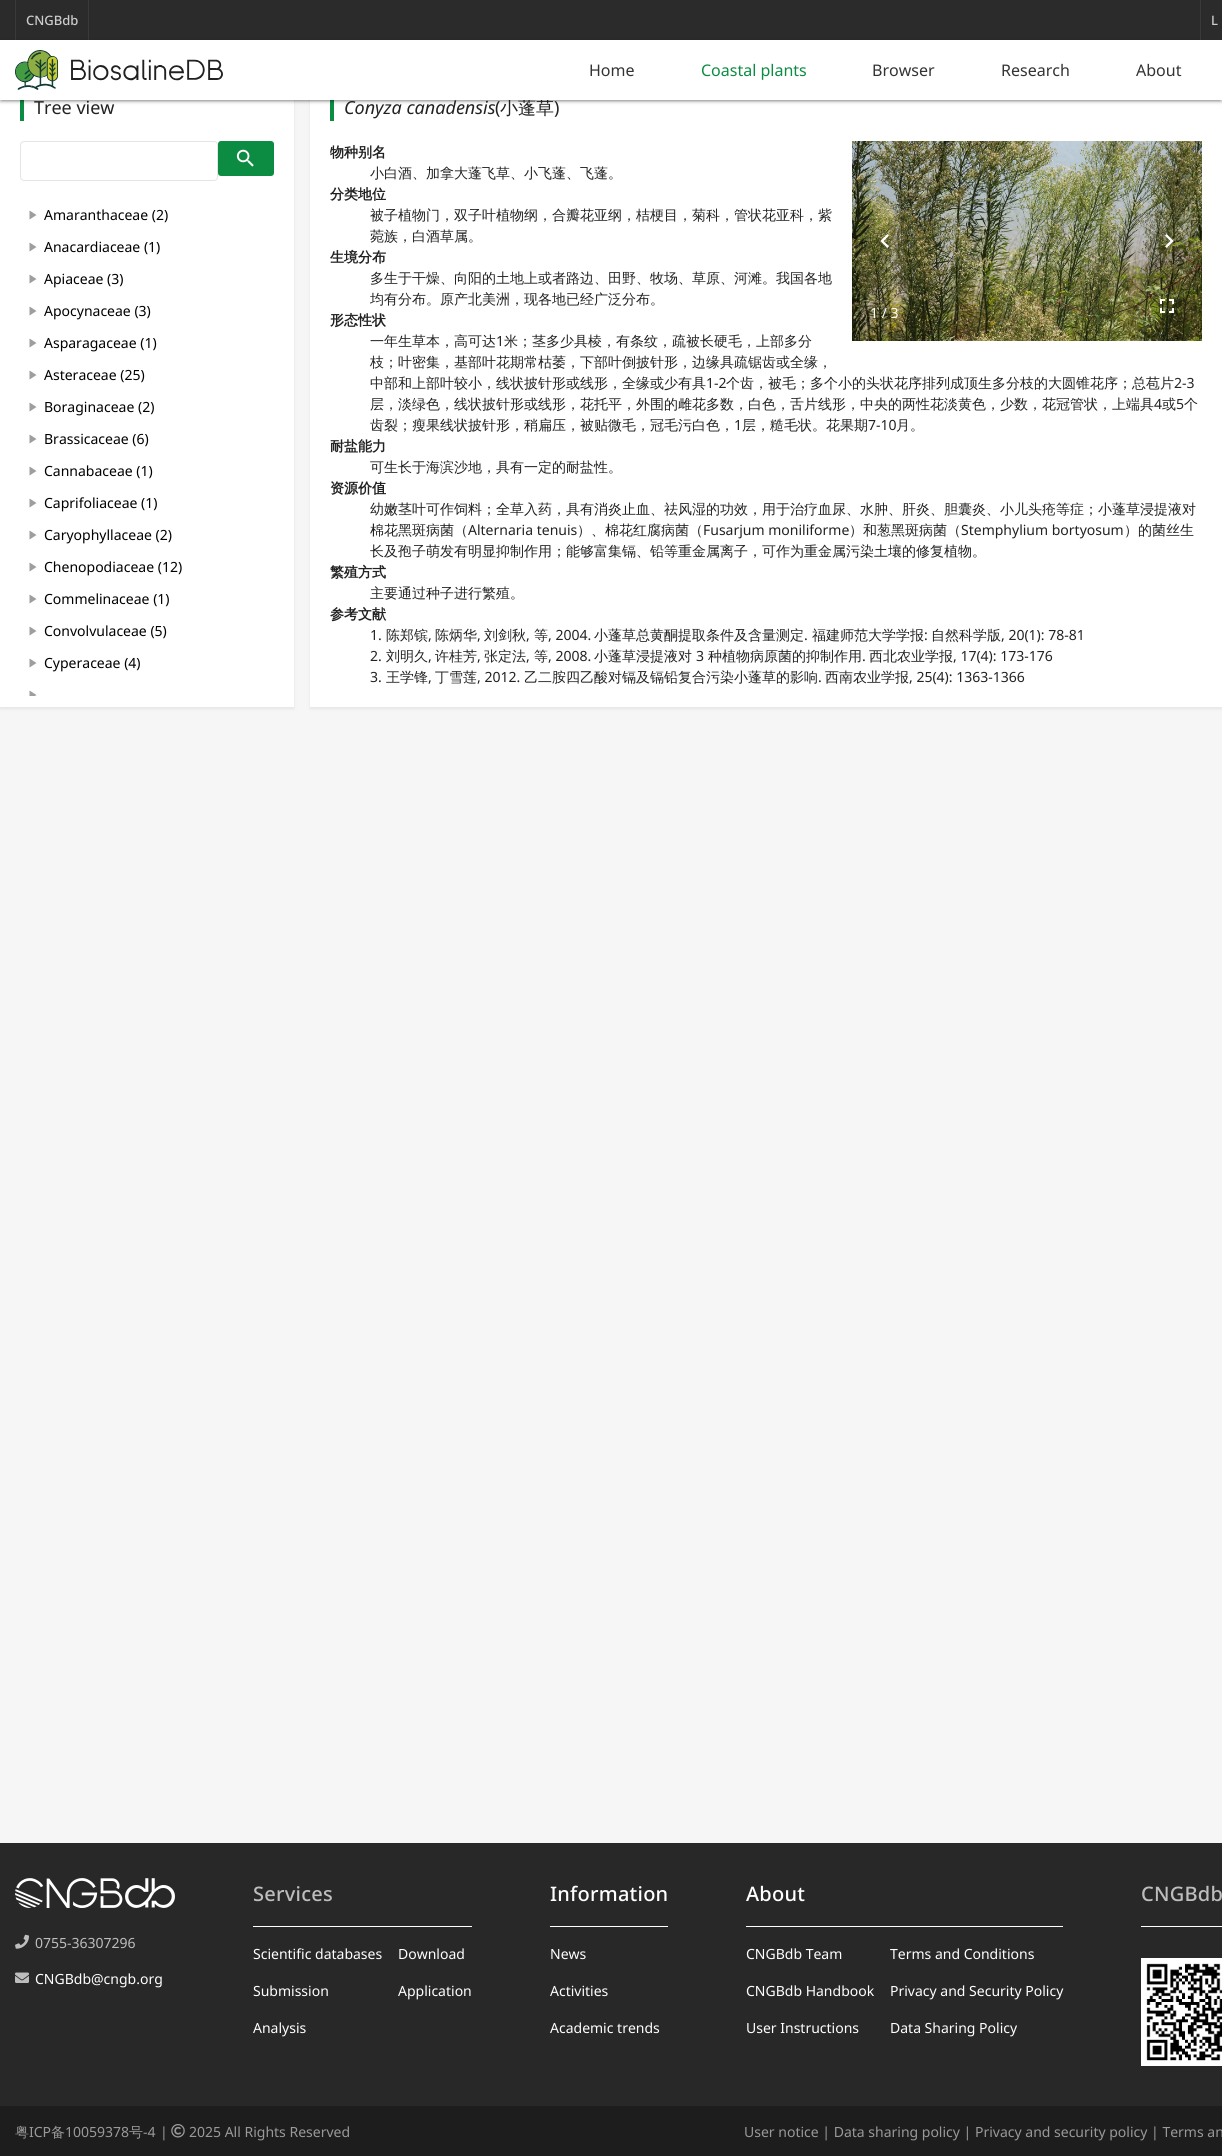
import math
import cairo


def write_spaced(ctx, x, y, s, letter, word):
	ctx.move_to(x, y)
	for ch in s:
		ctx.show_text(ch)
		ctx.rel_move_to(letter + word * (ch == ' '), 0)

def round_path(ctx, x, y, w, h, r):
	ctx.new_sub_path()
	for i, (u, v) in enumerate([(x + w - r, y + h - r), (x + r, y + h - r), (x + r, y + r), (x + w - r, y + r)]):
		ctx.arc(u, v, r, i * math.pi / 2, (i + 1) * math.pi / 2)
	ctx.close_path()

def blur_box(ctx, x, y, w, h, r, blur, alpha):
	ctx.push_group_with_content(cairo.CONTENT_ALPHA)
	ctx.set_operator(cairo.OPERATOR_SOURCE)
	for i in range(15, -16, -2):
		e = blur * i / 6
		if min(w, h) + 2 * e > 0:
			ctx.set_source_rgba(0, 0, 0, alpha * math.erfc((i - 1) / 8.5) / 2)
			round_path(ctx, x - e, y - e, w + 2 * e, h + 2 * e, max(0, min(r + e + blur * .6, min(w, h) / 2 + e)))
			ctx.fill()
	ctx.mask(ctx.pop_group())

def paste(ctx, path, x, y, w, h):
	ctx.save()
	ctx.set_source_surface(cairo.ImageSurface.create_from_png(path), x, y)
	ctx.rectangle(x, y, w, h)
	ctx.fill()
	ctx.restore()

def draw(ctx):
	ctx.set_source_rgb(0.961, 0.961, 0.961)
	ctx.paint()
	ctx.set_source_rgb(0.169, 0.169, 0.169)
	ctx.rectangle(0, 0, 1200, 40)
	ctx.fill()
	ctx.set_source_rgb(0.898, 0.898, 0.898)
	blur_box(ctx, 0, 76, 294, 633, 0, 1.5, 1)
	ctx.set_source_rgb(1, 1, 1)
	ctx.rectangle(0, 100, 294, 607)
	ctx.fill()
	ctx.set_source_rgb(0.047, 0.549, 0.259)
	ctx.rectangle(20, 94, 4, 27)
	ctx.fill()
	ctx.set_source_rgb(0.898, 0.898, 0.898)
	blur_box(ctx, 310, 76, 912, 633, 0, 1.5, 1)
	ctx.set_source_rgb(1, 1, 1)
	ctx.rectangle(310, 100, 912, 607)
	ctx.fill()
	ctx.set_source_rgb(0.047, 0.549, 0.259)
	ctx.rectangle(330, 94, 4, 27)
	ctx.fill()
	ctx.set_source_rgb(0, 0, 0)
	blur_box(ctx, 0, 42, 1222, 60, 0, 1, 0.14)
	blur_box(ctx, 0, 41, 1222, 60, 0, 2.5, 0.2)
	ctx.set_source_rgb(0.224, 0.224, 0.224)
	ctx.rectangle(15, 0, 1, 40)
	ctx.fill()
	ctx.select_font_face('Noto Sans Medium')
	ctx.set_font_size(13)
	ctx.set_source_rgb(0.8, 0.8, 0.8)
	ctx.move_to(26, 25)
	ctx.show_text('CNGBdb')
	ctx.set_source_rgb(0.224, 0.224, 0.224)
	ctx.rectangle(88, 0, 1, 40)
	ctx.rectangle(1200, 0, 1, 40)
	ctx.fill()
	ctx.set_source_rgb(0.169, 0.169, 0.169)
	ctx.rectangle(1201, 0, 21, 40)
	ctx.fill()
	ctx.set_source_rgb(0.8, 0.8, 0.8)
	ctx.move_to(1211, 25)
	ctx.show_text('L')
	ctx.set_source_rgb(0, 0, 0)
	blur_box(ctx, 2, 45, 1218, 56, 0, 0.5, 0.12)
	ctx.select_font_face('WenQuanYi Zen Hei Medium')
	ctx.set_font_size(18)
	ctx.set_source_rgb(0.133, 0.133, 0.133)
	ctx.move_to(500, 114)
	ctx.show_text('小蓬草')
	ctx.set_source_rgb(1, 1, 1)
	ctx.rectangle(0, 40, 1222, 60)
	ctx.fill()
	paste(ctx, 'media/1.png', 15, 50, 208, 40)
	ctx.select_font_face('Noto Sans')
	ctx.set_font_size(16)
	ctx.set_source_rgb(0.2, 0.2, 0.2)
	ctx.move_to(589, 76)
	ctx.show_text('Home')
	ctx.set_source_rgb(0.047, 0.549, 0.259)
	ctx.move_to(701, 76)
	ctx.show_text('Coastal plants')
	ctx.set_source_rgb(0.2, 0.2, 0.2)
	for x, y, s in [
		(872, 76, 'Browser'),
		(1001, 76, 'Research'),
		(1136, 76, 'About'),
	]:
		ctx.move_to(x, y)
		ctx.show_text(s)
	ctx.set_font_size(18)
	ctx.set_source_rgb(0.133, 0.133, 0.133)
	ctx.move_to(34, 114)
	ctx.show_text('Tree view')
	round_path(ctx, 20.5, 141.5, 197, 39, 3.5)
	ctx.set_source_rgb(0.898, 0.898, 0.898)
	ctx.set_line_width(1)
	ctx.stroke()
	ctx.set_source_rgb(0.047, 0.549, 0.259)
	round_path(ctx, 218, 141, 56, 35, 3)
	ctx.fill()
	paste(ctx, 'media/2.png', 236, 149, 18, 18)
	ctx.set_source_rgb(0.62, 0.62, 0.62)
	ctx.new_path()
	ctx.move_to(29.5, 210.5)
	ctx.line_to(36.5, 215)
	ctx.line_to(29.5, 219.5)
	ctx.close_path()
	ctx.fill()
	ctx.set_font_size(14)
	ctx.set_source_rgb(0, 0, 0)
	ctx.move_to(44, 220)
	ctx.show_text('Amaranthaceae (2)')
	ctx.set_source_rgb(0.62, 0.62, 0.62)
	ctx.new_path()
	ctx.move_to(29.5, 242.5)
	ctx.line_to(36.5, 247)
	ctx.line_to(29.5, 251.5)
	ctx.close_path()
	ctx.fill()
	ctx.set_source_rgb(0, 0, 0)
	ctx.move_to(44, 252)
	ctx.show_text('Anacardiaceae (1)')
	ctx.set_source_rgb(0.62, 0.62, 0.62)
	ctx.new_path()
	ctx.move_to(29.5, 274.5)
	ctx.line_to(36.5, 279)
	ctx.line_to(29.5, 283.5)
	ctx.close_path()
	ctx.fill()
	ctx.set_source_rgb(0, 0, 0)
	ctx.move_to(44, 284)
	ctx.show_text('Apiaceae (3)')
	ctx.set_source_rgb(0.62, 0.62, 0.62)
	ctx.new_path()
	ctx.move_to(29.5, 306.5)
	ctx.line_to(36.5, 311)
	ctx.line_to(29.5, 315.5)
	ctx.close_path()
	ctx.fill()
	ctx.set_source_rgb(0, 0, 0)
	ctx.move_to(44, 316)
	ctx.show_text('Apocynaceae (3)')
	ctx.set_source_rgb(0.62, 0.62, 0.62)
	ctx.new_path()
	ctx.move_to(29.5, 338.5)
	ctx.line_to(36.5, 343)
	ctx.line_to(29.5, 347.5)
	ctx.close_path()
	ctx.fill()
	ctx.set_source_rgb(0, 0, 0)
	ctx.move_to(44, 348)
	ctx.show_text('Asparagaceae (1)')
	ctx.set_source_rgb(0.62, 0.62, 0.62)
	ctx.new_path()
	ctx.move_to(29.5, 370.5)
	ctx.line_to(36.5, 375)
	ctx.line_to(29.5, 379.5)
	ctx.close_path()
	ctx.fill()
	ctx.set_source_rgb(0, 0, 0)
	ctx.move_to(44, 380)
	ctx.show_text('Asteraceae (25)')
	ctx.set_source_rgb(0.62, 0.62, 0.62)
	ctx.new_path()
	ctx.move_to(29.5, 402.5)
	ctx.line_to(36.5, 407)
	ctx.line_to(29.5, 411.5)
	ctx.close_path()
	ctx.fill()
	ctx.set_source_rgb(0, 0, 0)
	ctx.move_to(44, 412)
	ctx.show_text('Boraginaceae (2)')
	ctx.set_source_rgb(0.62, 0.62, 0.62)
	ctx.new_path()
	ctx.move_to(29.5, 434.5)
	ctx.line_to(36.5, 439)
	ctx.line_to(29.5, 443.5)
	ctx.close_path()
	ctx.fill()
	ctx.set_source_rgb(0, 0, 0)
	ctx.move_to(44, 444)
	ctx.show_text('Brassicaceae (6)')
	ctx.set_source_rgb(0.62, 0.62, 0.62)
	ctx.new_path()
	ctx.move_to(29.5, 466.5)
	ctx.line_to(36.5, 471)
	ctx.line_to(29.5, 475.5)
	ctx.close_path()
	ctx.fill()
	ctx.set_source_rgb(0, 0, 0)
	ctx.move_to(44, 476)
	ctx.show_text('Cannabaceae (1)')
	ctx.set_source_rgb(0.62, 0.62, 0.62)
	ctx.new_path()
	ctx.move_to(29.5, 498.5)
	ctx.line_to(36.5, 503)
	ctx.line_to(29.5, 507.5)
	ctx.close_path()
	ctx.fill()
	ctx.set_source_rgb(0, 0, 0)
	ctx.move_to(44, 508)
	ctx.show_text('Caprifoliaceae (1)')
	ctx.set_source_rgb(0.62, 0.62, 0.62)
	ctx.new_path()
	ctx.move_to(29.5, 530.5)
	ctx.line_to(36.5, 535)
	ctx.line_to(29.5, 539.5)
	ctx.close_path()
	ctx.fill()
	ctx.set_source_rgb(0, 0, 0)
	ctx.move_to(44, 540)
	ctx.show_text('Caryophyllaceae (2)')
	ctx.set_source_rgb(0.62, 0.62, 0.62)
	ctx.new_path()
	ctx.move_to(29.5, 562.5)
	ctx.line_to(36.5, 567)
	ctx.line_to(29.5, 571.5)
	ctx.close_path()
	ctx.fill()
	ctx.set_source_rgb(0, 0, 0)
	ctx.move_to(44, 572)
	ctx.show_text('Chenopodiaceae (12)')
	ctx.set_source_rgb(0.62, 0.62, 0.62)
	ctx.new_path()
	ctx.move_to(29.5, 594.5)
	ctx.line_to(36.5, 599)
	ctx.line_to(29.5, 603.5)
	ctx.close_path()
	ctx.fill()
	ctx.set_source_rgb(0, 0, 0)
	ctx.move_to(44, 604)
	ctx.show_text('Commelinaceae (1)')
	ctx.set_source_rgb(0.62, 0.62, 0.62)
	ctx.new_path()
	ctx.move_to(29.5, 626.5)
	ctx.line_to(36.5, 631)
	ctx.line_to(29.5, 635.5)
	ctx.close_path()
	ctx.fill()
	ctx.set_source_rgb(0, 0, 0)
	ctx.move_to(44, 636)
	ctx.show_text('Convolvulaceae (5)')
	ctx.set_source_rgb(0.62, 0.62, 0.62)
	ctx.new_path()
	ctx.move_to(29.5, 658.5)
	ctx.line_to(36.5, 663)
	ctx.line_to(29.5, 667.5)
	ctx.close_path()
	ctx.fill()
	ctx.set_source_rgb(0, 0, 0)
	ctx.move_to(44, 668)
	ctx.show_text('Cyperaceae (4)')
	ctx.save()
	ctx.rectangle(20, 197, 254, 499)
	ctx.clip()
	ctx.set_source_rgb(0.62, 0.62, 0.62)
	ctx.new_path()
	ctx.move_to(29.5, 690.5)
	ctx.line_to(36.5, 695)
	ctx.line_to(29.5, 699.5)
	ctx.close_path()
	ctx.fill()
	ctx.restore()
	ctx.select_font_face('Noto Sans', cairo.FONT_SLANT_ITALIC)
	ctx.set_font_size(18)
	ctx.set_source_rgb(0.133, 0.133, 0.133)
	ctx.move_to(344, 114)
	ctx.show_text('Conyza canadensis')
	ctx.select_font_face('Noto Sans')
	ctx.move_to(495, 114)
	ctx.show_text('(')
	ctx.move_to(554, 114)
	ctx.show_text(')')
	ctx.select_font_face('WenQuanYi Zen Hei', cairo.FONT_SLANT_NORMAL, cairo.FONT_WEIGHT_BOLD)
	ctx.set_font_size(14)
	ctx.move_to(330, 157)
	ctx.show_text('物种别名')
	ctx.select_font_face('WenQuanYi Zen Hei Medium')
	ctx.move_to(370, 178)
	ctx.show_text('小白酒、加拿大蓬飞草、小飞蓬、飞蓬。')
	ctx.select_font_face('WenQuanYi Zen Hei', cairo.FONT_SLANT_NORMAL, cairo.FONT_WEIGHT_BOLD)
	ctx.move_to(330, 199)
	ctx.show_text('分类地位')
	ctx.select_font_face('WenQuanYi Zen Hei Medium')
	ctx.move_to(370, 220)
	ctx.show_text('被子植物门，双子叶植物纲，合瓣花亚纲，桔梗目，菊科，管状花亚科，紫')
	ctx.move_to(370, 241)
	ctx.show_text('菀族，白酒草属。')
	ctx.select_font_face('WenQuanYi Zen Hei', cairo.FONT_SLANT_NORMAL, cairo.FONT_WEIGHT_BOLD)
	ctx.move_to(330, 262)
	ctx.show_text('生境分布')
	ctx.select_font_face('WenQuanYi Zen Hei Medium')
	ctx.move_to(370, 283)
	ctx.show_text('多生于干燥、向阳的土地上或者路边、田野、牧场、草原、河滩。我国各地')
	ctx.move_to(370, 304)
	ctx.show_text('均有分布。原产北美洲，现各地已经广泛分布。')
	ctx.select_font_face('WenQuanYi Zen Hei', cairo.FONT_SLANT_NORMAL, cairo.FONT_WEIGHT_BOLD)
	ctx.move_to(330, 325)
	ctx.show_text('形态性状')
	ctx.select_font_face('WenQuanYi Zen Hei Medium')
	ctx.move_to(370, 346)
	ctx.show_text('一年生草本，高可达')
	ctx.select_font_face('Noto Sans')
	ctx.move_to(496, 346)
	ctx.show_text('1')
	ctx.select_font_face('WenQuanYi Zen Hei Medium')
	for x, y, s in [
		(504, 346, '米；茎多少具棱，有条纹，疏被长硬毛，上部多分'),
		(370, 367, '枝；叶密集，基部叶花期常枯萎，下部叶倒披针形，边缘具疏锯齿或全缘，'),
		(370, 388, '中部和上部叶较小，线状披针形或线形，全缘或少有具'),
	]:
		ctx.move_to(x, y)
		ctx.show_text(s)
	ctx.select_font_face('Noto Sans')
	ctx.move_to(706, 388)
	ctx.show_text('1-2')
	ctx.select_font_face('WenQuanYi Zen Hei Medium')
	ctx.move_to(726, 388)
	ctx.show_text('个齿，被毛；多个小的头状花序排列成顶生多分枝的大圆锥花序；总苞片')
	ctx.select_font_face('Noto Sans')
	ctx.move_to(1174, 388)
	ctx.show_text('2-3')
	ctx.select_font_face('WenQuanYi Zen Hei Medium')
	ctx.move_to(370, 409)
	ctx.show_text('层，淡绿色，线状披针形或线形，花托平，外围的雌花多数，白色，舌片线形，中央的两性花淡黄色，少数，花冠管状，上端具')
	ctx.select_font_face('Noto Sans')
	ctx.move_to(1154, 409)
	ctx.show_text('4')
	ctx.select_font_face('WenQuanYi Zen Hei Medium')
	ctx.move_to(1162, 409)
	ctx.show_text('或')
	ctx.select_font_face('Noto Sans')
	ctx.move_to(1176, 409)
	ctx.show_text('5')
	ctx.select_font_face('WenQuanYi Zen Hei Medium')
	ctx.move_to(1184, 409)
	ctx.show_text('个')
	ctx.move_to(370, 430)
	ctx.show_text('齿裂；瘦果线状披针形，稍扁压，被贴微毛，冠毛污白色，')
	ctx.select_font_face('Noto Sans')
	ctx.move_to(734, 430)
	ctx.show_text('1')
	ctx.select_font_face('WenQuanYi Zen Hei Medium')
	ctx.move_to(742, 430)
	ctx.show_text('层，糙毛状。花果期')
	ctx.select_font_face('Noto Sans')
	ctx.move_to(868, 430)
	ctx.show_text('7-10')
	ctx.select_font_face('WenQuanYi Zen Hei Medium')
	ctx.move_to(896, 430)
	ctx.show_text('月。')
	ctx.select_font_face('WenQuanYi Zen Hei', cairo.FONT_SLANT_NORMAL, cairo.FONT_WEIGHT_BOLD)
	ctx.move_to(330, 451)
	ctx.show_text('耐盐能力')
	ctx.select_font_face('WenQuanYi Zen Hei Medium')
	ctx.move_to(370, 472)
	ctx.show_text('可生长于海滨沙地，具有一定的耐盐性。')
	ctx.select_font_face('WenQuanYi Zen Hei', cairo.FONT_SLANT_NORMAL, cairo.FONT_WEIGHT_BOLD)
	ctx.move_to(330, 493)
	ctx.show_text('资源价值')
	ctx.select_font_face('WenQuanYi Zen Hei Medium')
	ctx.move_to(370, 514)
	ctx.show_text('幼嫩茎叶可作饲料；全草入药，具有消炎止血、祛风湿的功效，用于治疗血尿、水肿、肝炎、胆囊炎、小儿头疮等症；小蓬草浸提液对')
	ctx.move_to(370, 535)
	ctx.show_text('棉花黑斑病菌（')
	ctx.select_font_face('Noto Sans')
	ctx.move_to(468, 535)
	ctx.show_text('Alternaria tenuis')
	ctx.select_font_face('WenQuanYi Zen Hei Medium')
	ctx.move_to(577, 535)
	ctx.show_text('）、棉花红腐病菌（')
	ctx.select_font_face('Noto Sans')
	ctx.move_to(703, 535)
	ctx.show_text('Fusarjum moniliforme')
	ctx.select_font_face('WenQuanYi Zen Hei Medium')
	ctx.move_to(849, 535)
	ctx.show_text('）和葱黑斑病菌（')
	ctx.select_font_face('Noto Sans')
	ctx.move_to(961, 535)
	ctx.show_text('Stemphylium bortyosum')
	ctx.select_font_face('WenQuanYi Zen Hei Medium')
	ctx.move_to(1124, 535)
	ctx.show_text('）的菌丝生')
	ctx.move_to(370, 556)
	ctx.show_text('长及孢子萌发有明显抑制作用；能够富集镉、铅等重金属离子，可作为重金属污染土壤的修复植物。')
	ctx.select_font_face('WenQuanYi Zen Hei', cairo.FONT_SLANT_NORMAL, cairo.FONT_WEIGHT_BOLD)
	ctx.move_to(330, 577)
	ctx.show_text('繁殖方式')
	ctx.select_font_face('WenQuanYi Zen Hei Medium')
	ctx.move_to(370, 598)
	ctx.show_text('主要通过种子进行繁殖。')
	ctx.select_font_face('WenQuanYi Zen Hei', cairo.FONT_SLANT_NORMAL, cairo.FONT_WEIGHT_BOLD)
	ctx.move_to(330, 619)
	ctx.show_text('参考文献')
	ctx.select_font_face('Noto Sans')
	ctx.move_to(370, 640)
	ctx.show_text('1.')
	ctx.select_font_face('WenQuanYi Zen Hei Medium')
	ctx.move_to(386, 640)
	ctx.show_text('陈郑镔')
	ctx.select_font_face('Noto Sans')
	ctx.move_to(428, 640)
	ctx.show_text(',')
	ctx.select_font_face('WenQuanYi Zen Hei Medium')
	ctx.move_to(435, 640)
	ctx.show_text('陈炳华')
	ctx.select_font_face('Noto Sans')
	ctx.move_to(477, 640)
	ctx.show_text(',')
	ctx.select_font_face('WenQuanYi Zen Hei Medium')
	ctx.move_to(484, 640)
	ctx.show_text('刘剑秋')
	ctx.select_font_face('Noto Sans')
	ctx.move_to(526, 640)
	ctx.show_text(',')
	ctx.select_font_face('WenQuanYi Zen Hei Medium')
	ctx.move_to(534, 640)
	ctx.show_text('等')
	ctx.select_font_face('Noto Sans')
	ctx.move_to(548, 640)
	ctx.show_text(', 2004.')
	ctx.select_font_face('WenQuanYi Zen Hei Medium')
	ctx.move_to(594, 640)
	ctx.show_text('小蓬草总黄酮提取条件及含量测定')
	ctx.select_font_face('Noto Sans')
	ctx.move_to(804, 640)
	ctx.show_text('.')
	ctx.select_font_face('WenQuanYi Zen Hei Medium')
	ctx.move_to(812, 640)
	ctx.show_text('福建师范大学学报')
	ctx.select_font_face('Noto Sans')
	ctx.move_to(924, 640)
	ctx.show_text(':')
	ctx.select_font_face('WenQuanYi Zen Hei Medium')
	ctx.move_to(931, 640)
	ctx.show_text('自然科学版')
	ctx.select_font_face('Noto Sans')
	ctx.move_to(1001, 640)
	ctx.show_text(', 20(1): 78-81')
	ctx.move_to(370, 661)
	ctx.show_text('2.')
	ctx.select_font_face('WenQuanYi Zen Hei Medium')
	ctx.move_to(386, 661)
	ctx.show_text('刘明久')
	ctx.select_font_face('Noto Sans')
	ctx.move_to(428, 661)
	ctx.show_text(',')
	ctx.select_font_face('WenQuanYi Zen Hei Medium')
	ctx.move_to(435, 661)
	ctx.show_text('许桂芳')
	ctx.select_font_face('Noto Sans')
	ctx.move_to(477, 661)
	ctx.show_text(',')
	ctx.select_font_face('WenQuanYi Zen Hei Medium')
	ctx.move_to(484, 661)
	ctx.show_text('张定法')
	ctx.select_font_face('Noto Sans')
	ctx.move_to(526, 661)
	ctx.show_text(',')
	ctx.select_font_face('WenQuanYi Zen Hei Medium')
	ctx.move_to(534, 661)
	ctx.show_text('等')
	ctx.select_font_face('Noto Sans')
	ctx.move_to(548, 661)
	ctx.show_text(', 2008.')
	ctx.select_font_face('WenQuanYi Zen Hei Medium')
	ctx.move_to(594, 661)
	ctx.show_text('小蓬草浸提液对')
	ctx.select_font_face('Noto Sans')
	ctx.move_to(696, 661)
	ctx.show_text('3')
	ctx.select_font_face('WenQuanYi Zen Hei Medium')
	ctx.move_to(708, 661)
	ctx.show_text('种植物病原菌的抑制作用')
	ctx.select_font_face('Noto Sans')
	ctx.move_to(862, 661)
	ctx.show_text('.')
	ctx.select_font_face('WenQuanYi Zen Hei Medium')
	ctx.move_to(869, 661)
	ctx.show_text('西北农业学报')
	ctx.select_font_face('Noto Sans')
	ctx.move_to(953, 661)
	ctx.show_text(', 17(4): 173-176')
	ctx.move_to(370, 682)
	ctx.show_text('3.')
	ctx.select_font_face('WenQuanYi Zen Hei Medium')
	ctx.move_to(386, 682)
	ctx.show_text('王学锋')
	ctx.select_font_face('Noto Sans')
	ctx.move_to(428, 682)
	ctx.show_text(',')
	ctx.select_font_face('WenQuanYi Zen Hei Medium')
	ctx.move_to(435, 682)
	ctx.show_text('丁雪莲')
	ctx.select_font_face('Noto Sans')
	ctx.move_to(477, 682)
	ctx.show_text(', 2012.')
	ctx.select_font_face('WenQuanYi Zen Hei Medium')
	ctx.move_to(524, 682)
	ctx.show_text('乙二胺四乙酸对镉及镉铅复合污染小蓬草的影响')
	ctx.select_font_face('Noto Sans')
	ctx.move_to(818, 682)
	ctx.show_text('.')
	ctx.select_font_face('WenQuanYi Zen Hei Medium')
	ctx.move_to(825, 682)
	ctx.show_text('西南农业学报')
	ctx.select_font_face('Noto Sans')
	ctx.move_to(909, 682)
	ctx.show_text(', 25(4): 1363-1366')
	paste(ctx, 'media/3.png', 852, 141, 350, 200)
	paste(ctx, 'media/4.png', 880, 234, 9, 14)
	paste(ctx, 'media/5.png', 1165, 234, 9, 14)
	ctx.set_source_rgb(1, 1, 1)
	ctx.move_to(870, 318)
	ctx.show_text('1 / 3')
	paste(ctx, 'media/6.png', 1160, 299, 14, 14)
	ctx.set_source_rgb(0.157, 0.157, 0.157)
	ctx.rectangle(0, 1843, 1222, 263)
	ctx.fill()
	paste(ctx, 'media/7.png', 15, 1878, 160, 30)
	paste(ctx, 'media/8.png', 15, 1934, 14, 15)
	ctx.set_source_rgb(0.741, 0.741, 0.741)
	ctx.move_to(35, 1948)
	ctx.show_text('0755-36307296')
	paste(ctx, 'media/9.png', 15, 1972, 14, 11)
	ctx.set_source_rgb(1, 1, 1)
	ctx.move_to(35, 1984)
	ctx.show_text('CNGBdb@cngb.org')
	ctx.select_font_face('Noto Sans Medium')
	ctx.set_font_size(20)
	ctx.set_source_rgb(0.741, 0.741, 0.741)
	write_spaced(ctx, 253, 1901, 'Services', 0.25, 0)
	ctx.set_source_rgb(1, 1, 1)
	ctx.rectangle(253, 1926, 219, 1)
	ctx.fill()
	ctx.select_font_face('Noto Sans')
	ctx.set_font_size(14)
	for x, y, s in [
		(253, 1959, 'Scientific databases'),
		(253, 1996, 'Submission'),
		(253, 2033, 'Analysis'),
		(398, 1959, 'Download'),
		(398, 1996, 'Application'),
	]:
		ctx.move_to(x, y)
		ctx.show_text(s)
	ctx.select_font_face('Noto Sans Medium')
	ctx.set_font_size(20)
	write_spaced(ctx, 550, 1901, 'Information', 0.25, 0)
	ctx.rectangle(550, 1926, 118, 1)
	ctx.fill()
	ctx.select_font_face('Noto Sans')
	ctx.set_font_size(14)
	for x, y, s in [
		(550, 1959, 'News'),
		(550, 1996, 'Activities'),
		(550, 2033, 'Academic trends'),
	]:
		ctx.move_to(x, y)
		ctx.show_text(s)
	ctx.select_font_face('Noto Sans Medium')
	ctx.set_font_size(20)
	write_spaced(ctx, 746, 1901, 'About', 0.25, 0)
	ctx.rectangle(746, 1926, 317, 1)
	ctx.fill()
	ctx.select_font_face('Noto Sans')
	ctx.set_font_size(14)
	for x, y, s in [
		(746, 1959, 'CNGBdb Team'),
		(746, 1996, 'CNGBdb Handbook'),
		(746, 2033, 'User Instructions'),
		(890, 1959, 'Terms and Conditions'),
		(890, 1996, 'Privacy and Security Policy'),
		(890, 2033, 'Data Sharing Policy'),
	]:
		ctx.move_to(x, y)
		ctx.show_text(s)
	ctx.select_font_face('Noto Sans Medium')
	ctx.set_font_size(20)
	ctx.set_source_rgb(0.741, 0.741, 0.741)
	write_spaced(ctx, 1141, 1901, 'CNGBdb', 0.25, 0)
	ctx.set_source_rgb(1, 1, 1)
	ctx.rectangle(1141, 1926, 81, 1)
	ctx.fill()
	paste(ctx, 'media/10.png', 1141, 1958, 81, 108)
	ctx.set_source_rgb(0.114, 0.114, 0.114)
	ctx.rectangle(0, 2106, 1222, 50)
	ctx.fill()
	ctx.select_font_face('WenQuanYi Zen Hei Medium')
	ctx.set_font_size(14)
	ctx.set_source_rgb(0.6, 0.6, 0.6)
	ctx.move_to(15, 2137)
	ctx.show_text('粤')
	ctx.select_font_face('Noto Sans')
	ctx.move_to(29, 2137)
	ctx.show_text('ICP')
	ctx.select_font_face('WenQuanYi Zen Hei Medium')
	ctx.move_to(51, 2137)
	ctx.show_text('备')
	ctx.select_font_face('Noto Sans')
	ctx.move_to(65, 2137)
	ctx.show_text('10059378')
	ctx.select_font_face('WenQuanYi Zen Hei Medium')
	ctx.move_to(129, 2137)
	ctx.show_text('号')
	ctx.select_font_face('Noto Sans')
	ctx.move_to(143, 2137)
	ctx.show_text('-4')
	ctx.move_to(160, 2137)
	ctx.show_text('|')
	paste(ctx, 'media/11.png', 171, 2124, 14, 14)
	ctx.move_to(189, 2137)
	ctx.show_text('2025 All Rights Reserved')
	ctx.move_to(744, 2137)
	ctx.show_text('User notice | Data sharing policy | Privacy and security policy | Terms an')


surface = cairo.ImageSurface(cairo.FORMAT_RGB24, 1222, 2156)
ctx = cairo.Context(surface)
options = cairo.FontOptions()
options.set_hint_metrics(cairo.HINT_METRICS_OFF)
options.set_hint_style(cairo.HINT_STYLE_NONE)
ctx.set_font_options(options)
ctx.set_miter_limit(4)
draw(ctx)
surface.write_to_png('image.png')
